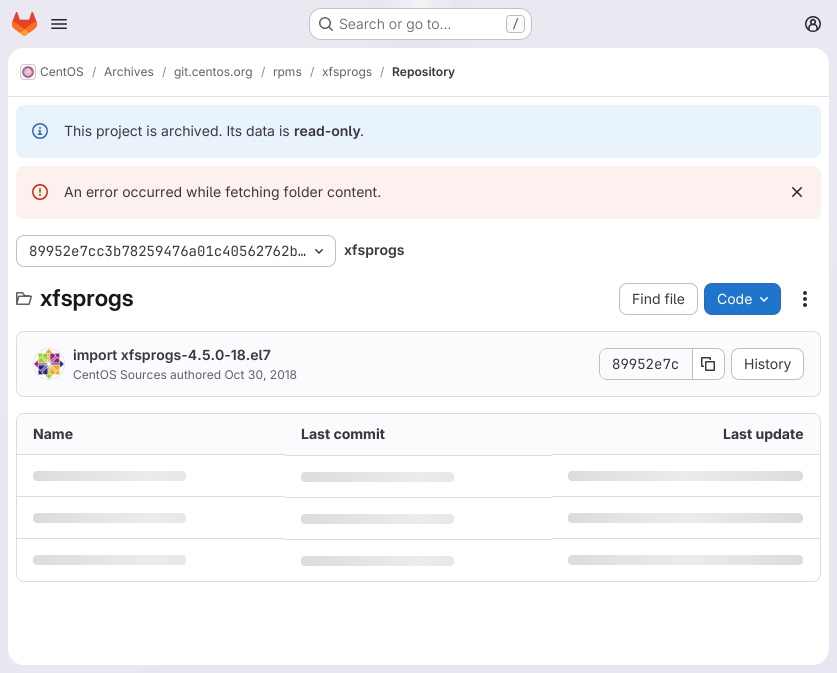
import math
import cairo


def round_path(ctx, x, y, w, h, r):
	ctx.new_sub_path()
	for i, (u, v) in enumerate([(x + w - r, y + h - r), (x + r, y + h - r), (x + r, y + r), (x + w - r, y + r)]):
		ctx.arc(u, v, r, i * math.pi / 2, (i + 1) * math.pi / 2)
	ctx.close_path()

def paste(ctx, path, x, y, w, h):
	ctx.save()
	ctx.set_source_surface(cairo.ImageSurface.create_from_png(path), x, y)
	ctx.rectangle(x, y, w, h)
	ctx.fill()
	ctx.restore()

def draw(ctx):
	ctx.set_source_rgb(1, 1, 1)
	ctx.paint()
	gradient = cairo.LinearGradient(489, 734, 348, -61)
	gradient.add_color_stop_rgba(0, 0.91, 0.902, 0.941, 1)
	gradient.add_color_stop_rgba(0.7, 0.918, 0.914, 0.949, 1)
	ctx.set_source(gradient)
	ctx.rectangle(0, 0, 837, 673)
	ctx.fill()
	gradient = cairo.RadialGradient(0, 0, 0, 0, 0, 1)
	gradient.set_matrix(cairo.Matrix(1 / 419, 0, 0, 1 / 673, -1 * 419 / 419, -1 * 0 / 673))
	gradient.add_color_stop_rgba(0, 0.894, 0.886, 0.929, 1)
	gradient.add_color_stop_rgba(0.17, 0.894, 0.886, 0.929, 0)
	ctx.set_source(gradient)
	ctx.rectangle(368, 0, 102, 48)
	ctx.fill()
	gradient = cairo.RadialGradient(0, 0, 0, 0, 0, 1)
	gradient.set_matrix(cairo.Matrix(1 / 419, 0, 0, 1 / 673, -1 * 419 / 419, -1 * 0 / 673))
	gradient.add_color_stop_rgba(0, 0.894, 0.886, 0.925, 1)
	gradient.add_color_stop_rgba(0.12, 0.894, 0.886, 0.925, 0)
	ctx.set_source(gradient)
	ctx.rectangle(398, 0, 42, 24)
	ctx.fill()
	gradient = cairo.RadialGradient(419, 0, 0, 419, 0, 793)
	gradient.add_color_stop_rgba(0, 1, 1, 1, 0.6)
	gradient.add_color_stop_rgba(0.05, 1, 1, 1, 0)
	ctx.set_source(gradient)
	ctx.rectangle(381, 0, 76, 8)
	ctx.fill()
	paste(ctx, 'media/1.png', 12, 12, 25, 24)
	paste(ctx, 'media/2.png', 51, 19, 16, 10)
	ctx.set_source_rgb(1, 1, 1)
	round_path(ctx, 309, 8, 223, 32, 12)
	ctx.fill()
	round_path(ctx, 309.5, 8.5, 222, 31, 11.5)
	ctx.set_source_rgba(0.02, 0.02, 0.024, 0.24)
	ctx.set_line_width(1)
	ctx.stroke()
	paste(ctx, 'media/3.png', 319, 17, 14, 14)
	ctx.select_font_face('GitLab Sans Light')
	ctx.set_font_size(14)
	ctx.set_source_rgb(0.384, 0.38, 0.408)
	ctx.move_to(339, 29)
	ctx.show_text('Search or go to…')
	ctx.set_source_rgb(0.984, 0.98, 0.992)
	round_path(ctx, 506.5, 15.5, 18, 17, 3.5)
	ctx.fill_preserve()
	ctx.set_source_rgb(0.749, 0.749, 0.765)
	ctx.stroke()
	ctx.select_font_face('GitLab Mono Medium')
	ctx.set_font_size(12)
	ctx.set_source_rgb(0.384, 0.38, 0.408)
	ctx.move_to(512, 28)
	ctx.show_text('/')
	paste(ctx, 'media/4.png', 805, 16, 16, 16)
	ctx.set_source_rgb(1, 1, 1)
	round_path(ctx, 8, 48, 821, 617, 16)
	ctx.fill()
	ctx.new_path()
	ctx.move_to(24, 48)
	ctx.line_to(813, 48)
	ctx.curve_to(822, 48, 829, 55, 829, 64)
	ctx.line_to(829, 97)
	ctx.line_to(8, 97)
	ctx.line_to(8, 64)
	ctx.curve_to(8, 55, 15, 48, 24, 48)
	ctx.close_path()
	ctx.fill()
	ctx.set_source_rgb(0.882, 0.875, 0.925)
	ctx.rectangle(8, 96, 821, 1)
	ctx.fill()
	round_path(ctx, 20.5, 64.5, 15, 15, 3.5)
	ctx.set_source_rgb(0.863, 0.863, 0.871)
	ctx.stroke()
	paste(ctx, 'media/5.png', 21, 65, 14, 14)
	round_path(ctx, 20.5, 64.5, 15, 15, 3.5)
	ctx.set_source_rgba(0.02, 0.02, 0.024, 0.08)
	ctx.stroke()
	ctx.select_font_face('GitLab Sans')
	ctx.set_source_rgb(0.384, 0.38, 0.408)
	ctx.move_to(40, 76)
	ctx.show_text('CentOS')
	ctx.set_source_rgb(0.537, 0.533, 0.553)
	ctx.move_to(92, 76)
	ctx.show_text('/')
	ctx.set_source_rgb(0.384, 0.38, 0.408)
	ctx.move_to(104, 76)
	ctx.show_text('Archives')
	ctx.set_source_rgb(0.537, 0.533, 0.553)
	ctx.move_to(162, 76)
	ctx.show_text('/')
	ctx.set_source_rgb(0.384, 0.38, 0.408)
	ctx.move_to(174, 76)
	ctx.show_text('git.centos.org')
	ctx.set_source_rgb(0.537, 0.533, 0.553)
	ctx.move_to(261, 76)
	ctx.show_text('/')
	ctx.set_source_rgb(0.384, 0.38, 0.408)
	ctx.move_to(273, 76)
	ctx.show_text('rpms')
	ctx.set_source_rgb(0.537, 0.533, 0.553)
	ctx.move_to(310, 76)
	ctx.show_text('/')
	ctx.set_source_rgb(0.384, 0.38, 0.408)
	ctx.move_to(322, 76)
	ctx.show_text('xfsprogs')
	ctx.set_source_rgb(0.537, 0.533, 0.553)
	ctx.move_to(380, 76)
	ctx.show_text('/')
	ctx.select_font_face('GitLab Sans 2 SemiBold')
	ctx.set_source_rgb(0.227, 0.22, 0.247)
	ctx.move_to(392, 76)
	ctx.show_text('Repository')
	ctx.set_source_rgb(0.914, 0.953, 0.988)
	round_path(ctx, 16, 105, 805, 53, 8)
	ctx.fill()
	paste(ctx, 'media/6.png', 32, 123, 16, 16)
	ctx.select_font_face('GitLab Sans')
	ctx.set_font_size(14)
	ctx.set_source_rgb(0.227, 0.22, 0.247)
	ctx.move_to(64, 136)
	ctx.show_text('This project is archived. Its data is')
	ctx.select_font_face('GitLab Sans 2 SemiBold')
	ctx.move_to(294, 136)
	ctx.show_text('read-only')
	ctx.select_font_face('GitLab Sans')
	ctx.move_to(360, 136)
	ctx.show_text('.')
	ctx.set_source_rgb(0.988, 0.945, 0.937)
	round_path(ctx, 16, 166, 805, 53, 8)
	ctx.fill()
	paste(ctx, 'media/7.png', 32, 184, 16, 16)
	ctx.set_source_rgb(0.227, 0.22, 0.247)
	ctx.move_to(64, 197)
	ctx.show_text('An error occurred while fetching folder content.')
	paste(ctx, 'media/8.png', 792, 187, 10, 10)
	round_path(ctx, 16.5, 235.5, 319, 31, 7.5)
	ctx.set_source_rgb(0.749, 0.749, 0.765)
	ctx.stroke()
	ctx.select_font_face('GitLab Mono')
	ctx.set_source_rgb(0.227, 0.22, 0.247)
	ctx.move_to(29, 256)
	ctx.show_text('89952e7cc3b78259476a01c40562762b…')
	paste(ctx, 'media/9.png', 315, 249, 8, 5)
	ctx.select_font_face('GitLab Sans 2 SemiBold')
	ctx.move_to(344, 255)
	ctx.show_text('xfsprogs')
	paste(ctx, 'media/10.png', 16, 292, 16, 13)
	ctx.select_font_face('GitLab Sans SemiBold')
	ctx.set_font_size(23)
	ctx.set_source_rgb(0.094, 0.09, 0.114)
	ctx.move_to(40, 306)
	ctx.show_text('xfsprogs')
	round_path(ctx, 619.5, 283.5, 78, 31, 7.5)
	ctx.set_source_rgb(0.749, 0.749, 0.765)
	ctx.stroke()
	ctx.select_font_face('GitLab Sans')
	ctx.set_font_size(14)
	ctx.set_source_rgb(0.227, 0.22, 0.247)
	ctx.move_to(632, 304)
	ctx.show_text('Find file')
	ctx.set_source_rgb(0.122, 0.459, 0.796)
	round_path(ctx, 704.5, 283.5, 76, 31, 7.5)
	ctx.fill_preserve()
	ctx.set_source_rgb(0.184, 0.408, 0.706)
	ctx.stroke()
	ctx.set_source_rgb(1, 1, 1)
	ctx.move_to(717, 304)
	ctx.show_text('Code')
	paste(ctx, 'media/11.png', 760, 297, 8, 5)
	paste(ctx, 'media/12.png', 803, 291, 4, 16)
	ctx.set_source_rgb(0.984, 0.98, 0.992)
	round_path(ctx, 16.5, 331.5, 804, 65, 7.5)
	ctx.fill_preserve()
	ctx.set_source_rgb(0.863, 0.863, 0.871)
	ctx.stroke()
	paste(ctx, 'media/13.png', 33, 348, 31, 31)
	ctx.arc(49, 364, 15.5, 0, 2 * math.pi)
	ctx.set_source_rgba(0.02, 0.02, 0.024, 0.08)
	ctx.stroke()
	ctx.select_font_face('GitLab Sans 2 SemiBold')
	ctx.set_source_rgb(0.227, 0.22, 0.247)
	ctx.move_to(73, 360)
	ctx.show_text('import xfsprogs-4.5.0-18.el7')
	ctx.select_font_face('GitLab Sans')
	ctx.set_font_size(12)
	ctx.set_source_rgb(0.384, 0.38, 0.408)
	ctx.move_to(73, 379)
	ctx.show_text('CentOS Sources authored Oct 30, 2018')
	ctx.set_source_rgb(0.749, 0.749, 0.765)
	ctx.set_fill_rule(cairo.FILL_RULE_EVEN_ODD)
	ctx.new_path()
	ctx.move_to(607, 348)
	ctx.line_to(692, 348)
	ctx.line_to(692, 380)
	ctx.line_to(607, 380)
	ctx.curve_to(603, 380, 599, 376, 599, 372)
	ctx.line_to(599, 356)
	ctx.curve_to(599, 352, 603, 348, 607, 348)
	ctx.close_path()
	ctx.move_to(607, 349)
	ctx.line_to(692, 349)
	ctx.line_to(692, 379)
	ctx.line_to(607, 379)
	ctx.curve_to(603, 379, 600, 376, 600, 372)
	ctx.line_to(600, 356)
	ctx.curve_to(600, 352, 603, 349, 607, 349)
	ctx.close_path()
	ctx.fill()
	ctx.select_font_face('GitLab Mono')
	ctx.set_font_size(14)
	ctx.set_source_rgb(0.227, 0.22, 0.247)
	ctx.move_to(612, 369)
	ctx.show_text('89952e7c')
	ctx.set_source_rgb(1, 1, 1)
	ctx.new_path()
	ctx.move_to(693, 349)
	ctx.line_to(717, 349)
	ctx.curve_to(721, 349, 724, 352, 724, 356)
	ctx.line_to(724, 372)
	ctx.curve_to(724, 376, 721, 379, 717, 379)
	ctx.line_to(693, 379)
	ctx.close_path()
	ctx.fill()
	ctx.set_source_rgb(0.749, 0.749, 0.765)
	ctx.new_path()
	ctx.move_to(693, 348)
	ctx.line_to(717, 348)
	ctx.curve_to(721.5, 348, 725, 351.5, 725, 356)
	ctx.line_to(725, 372)
	ctx.curve_to(725, 376.5, 721.5, 380, 717, 380)
	ctx.line_to(693, 380)
	ctx.close_path()
	ctx.move_to(693, 349)
	ctx.line_to(717, 349)
	ctx.curve_to(721, 349, 724, 352, 724, 356)
	ctx.line_to(724, 372)
	ctx.curve_to(724, 376, 721, 379, 717, 379)
	ctx.line_to(693, 379)
	ctx.close_path()
	ctx.fill()
	ctx.rectangle(692, 348, 1, 32)
	ctx.fill()
	paste(ctx, 'media/14.png', 701, 357, 14, 14)
	ctx.set_source_rgb(1, 1, 1)
	round_path(ctx, 731.5, 348.5, 72, 31, 7.5)
	ctx.fill_preserve()
	ctx.set_source_rgb(0.749, 0.749, 0.765)
	ctx.stroke()
	ctx.select_font_face('GitLab Sans')
	ctx.set_source_rgb(0.227, 0.22, 0.247)
	ctx.move_to(744, 369)
	ctx.show_text('History')
	round_path(ctx, 16.5, 413.5, 804, 168, 7.5)
	ctx.set_source_rgb(0.863, 0.863, 0.871)
	ctx.stroke()
	ctx.set_source_rgb(0.984, 0.98, 0.992)
	ctx.new_path()
	ctx.move_to(24, 414)
	ctx.line_to(285, 414)
	ctx.line_to(285, 455)
	ctx.line_to(17, 455)
	ctx.line_to(17, 421)
	ctx.curve_to(17, 417, 20, 414, 24, 414)
	ctx.close_path()
	ctx.fill()
	ctx.select_font_face('GitLab Sans', cairo.FONT_SLANT_NORMAL, cairo.FONT_WEIGHT_BOLD)
	ctx.set_source_rgb(0.227, 0.22, 0.247)
	ctx.move_to(33, 439)
	ctx.show_text('Name')
	ctx.set_source_rgb(0.984, 0.98, 0.992)
	ctx.rectangle(285, 414, 267, 41)
	ctx.fill()
	ctx.set_source_rgb(0.227, 0.22, 0.247)
	ctx.move_to(301, 439)
	ctx.show_text('Last commit')
	ctx.set_source_rgb(0.984, 0.98, 0.992)
	ctx.new_path()
	ctx.move_to(552, 414)
	ctx.line_to(813, 414)
	ctx.curve_to(817, 414, 820, 417, 820, 421)
	ctx.line_to(820, 455)
	ctx.line_to(552, 455)
	ctx.close_path()
	ctx.fill()
	ctx.set_source_rgb(0.227, 0.22, 0.247)
	ctx.move_to(723, 439)
	ctx.show_text('Last update')
	ctx.set_source_rgb(0.863, 0.863, 0.871)
	ctx.rectangle(17, 454, 268, 1)
	ctx.fill()
	gradient = cairo.LinearGradient(33, 471, 268, 471)
	gradient.add_color_stop_rgba(0, 0.863, 0.863, 0.871, 1)
	gradient.add_color_stop_rgba(0.5, 0.925, 0.925, 0.937, 1)
	gradient.add_color_stop_rgba(1, 0.863, 0.863, 0.871, 1)
	ctx.set_source(gradient)
	round_path(ctx, 33, 471, 153, 10, 4)
	ctx.fill()
	ctx.set_source_rgb(0.863, 0.863, 0.871)
	ctx.rectangle(285, 455, 267, 1)
	ctx.fill()
	gradient = cairo.LinearGradient(301, 472, 536, 472)
	gradient.add_color_stop_rgba(0, 0.863, 0.863, 0.871, 1)
	gradient.add_color_stop_rgba(0.5, 0.925, 0.925, 0.937, 1)
	gradient.add_color_stop_rgba(1, 0.863, 0.863, 0.871, 1)
	ctx.set_source(gradient)
	round_path(ctx, 301, 472, 153, 10, 4)
	ctx.fill()
	ctx.set_source_rgb(0.863, 0.863, 0.871)
	ctx.rectangle(552, 454, 268, 1)
	ctx.fill()
	gradient = cairo.LinearGradient(568, 471, 803, 471)
	gradient.add_color_stop_rgba(0, 0.863, 0.863, 0.871, 1)
	gradient.add_color_stop_rgba(0.5, 0.925, 0.925, 0.937, 1)
	gradient.add_color_stop_rgba(1, 0.863, 0.863, 0.871, 1)
	ctx.set_source(gradient)
	round_path(ctx, 568, 471, 235, 10, 4)
	ctx.fill()
	ctx.set_source_rgb(0.863, 0.863, 0.871)
	ctx.rectangle(17, 496, 268, 1)
	ctx.fill()
	gradient = cairo.LinearGradient(33, 513, 268, 513)
	gradient.add_color_stop_rgba(0, 0.863, 0.863, 0.871, 1)
	gradient.add_color_stop_rgba(0.5, 0.925, 0.925, 0.937, 1)
	gradient.add_color_stop_rgba(1, 0.863, 0.863, 0.871, 1)
	ctx.set_source(gradient)
	round_path(ctx, 33, 513, 153, 10, 4)
	ctx.fill()
	ctx.set_source_rgb(0.863, 0.863, 0.871)
	ctx.rectangle(285, 497, 267, 1)
	ctx.fill()
	gradient = cairo.LinearGradient(301, 514, 536, 514)
	gradient.add_color_stop_rgba(0, 0.863, 0.863, 0.871, 1)
	gradient.add_color_stop_rgba(0.5, 0.925, 0.925, 0.937, 1)
	gradient.add_color_stop_rgba(1, 0.863, 0.863, 0.871, 1)
	ctx.set_source(gradient)
	round_path(ctx, 301, 514, 153, 10, 4)
	ctx.fill()
	ctx.set_source_rgb(0.863, 0.863, 0.871)
	ctx.rectangle(552, 496, 268, 1)
	ctx.fill()
	gradient = cairo.LinearGradient(568, 513, 803, 513)
	gradient.add_color_stop_rgba(0, 0.863, 0.863, 0.871, 1)
	gradient.add_color_stop_rgba(0.5, 0.925, 0.925, 0.937, 1)
	gradient.add_color_stop_rgba(1, 0.863, 0.863, 0.871, 1)
	ctx.set_source(gradient)
	round_path(ctx, 568, 513, 235, 10, 4)
	ctx.fill()
	ctx.set_source_rgb(0.863, 0.863, 0.871)
	ctx.rectangle(17, 538, 268, 1)
	ctx.fill()
	gradient = cairo.LinearGradient(33, 555, 268, 555)
	gradient.add_color_stop_rgba(0, 0.863, 0.863, 0.871, 1)
	gradient.add_color_stop_rgba(0.5, 0.925, 0.925, 0.937, 1)
	gradient.add_color_stop_rgba(1, 0.863, 0.863, 0.871, 1)
	ctx.set_source(gradient)
	round_path(ctx, 33, 555, 153, 10, 4)
	ctx.fill()
	ctx.set_source_rgb(0.863, 0.863, 0.871)
	ctx.rectangle(285, 539, 267, 1)
	ctx.fill()
	gradient = cairo.LinearGradient(301, 556, 536, 556)
	gradient.add_color_stop_rgba(0, 0.863, 0.863, 0.871, 1)
	gradient.add_color_stop_rgba(0.5, 0.925, 0.925, 0.937, 1)
	gradient.add_color_stop_rgba(1, 0.863, 0.863, 0.871, 1)
	ctx.set_source(gradient)
	round_path(ctx, 301, 556, 153, 10, 4)
	ctx.fill()
	ctx.set_source_rgb(0.863, 0.863, 0.871)
	ctx.rectangle(552, 538, 268, 1)
	ctx.fill()
	gradient = cairo.LinearGradient(568, 555, 803, 555)
	gradient.add_color_stop_rgba(0, 0.863, 0.863, 0.871, 1)
	gradient.add_color_stop_rgba(0.5, 0.925, 0.925, 0.937, 1)
	gradient.add_color_stop_rgba(1, 0.863, 0.863, 0.871, 1)
	ctx.set_source(gradient)
	round_path(ctx, 568, 555, 235, 10, 4)
	ctx.fill()


surface = cairo.ImageSurface(cairo.FORMAT_RGB24, 837, 673)
ctx = cairo.Context(surface)
options = cairo.FontOptions()
options.set_hint_metrics(cairo.HINT_METRICS_OFF)
options.set_hint_style(cairo.HINT_STYLE_NONE)
ctx.set_font_options(options)
ctx.set_miter_limit(4)
draw(ctx)
surface.write_to_png('image.png')
